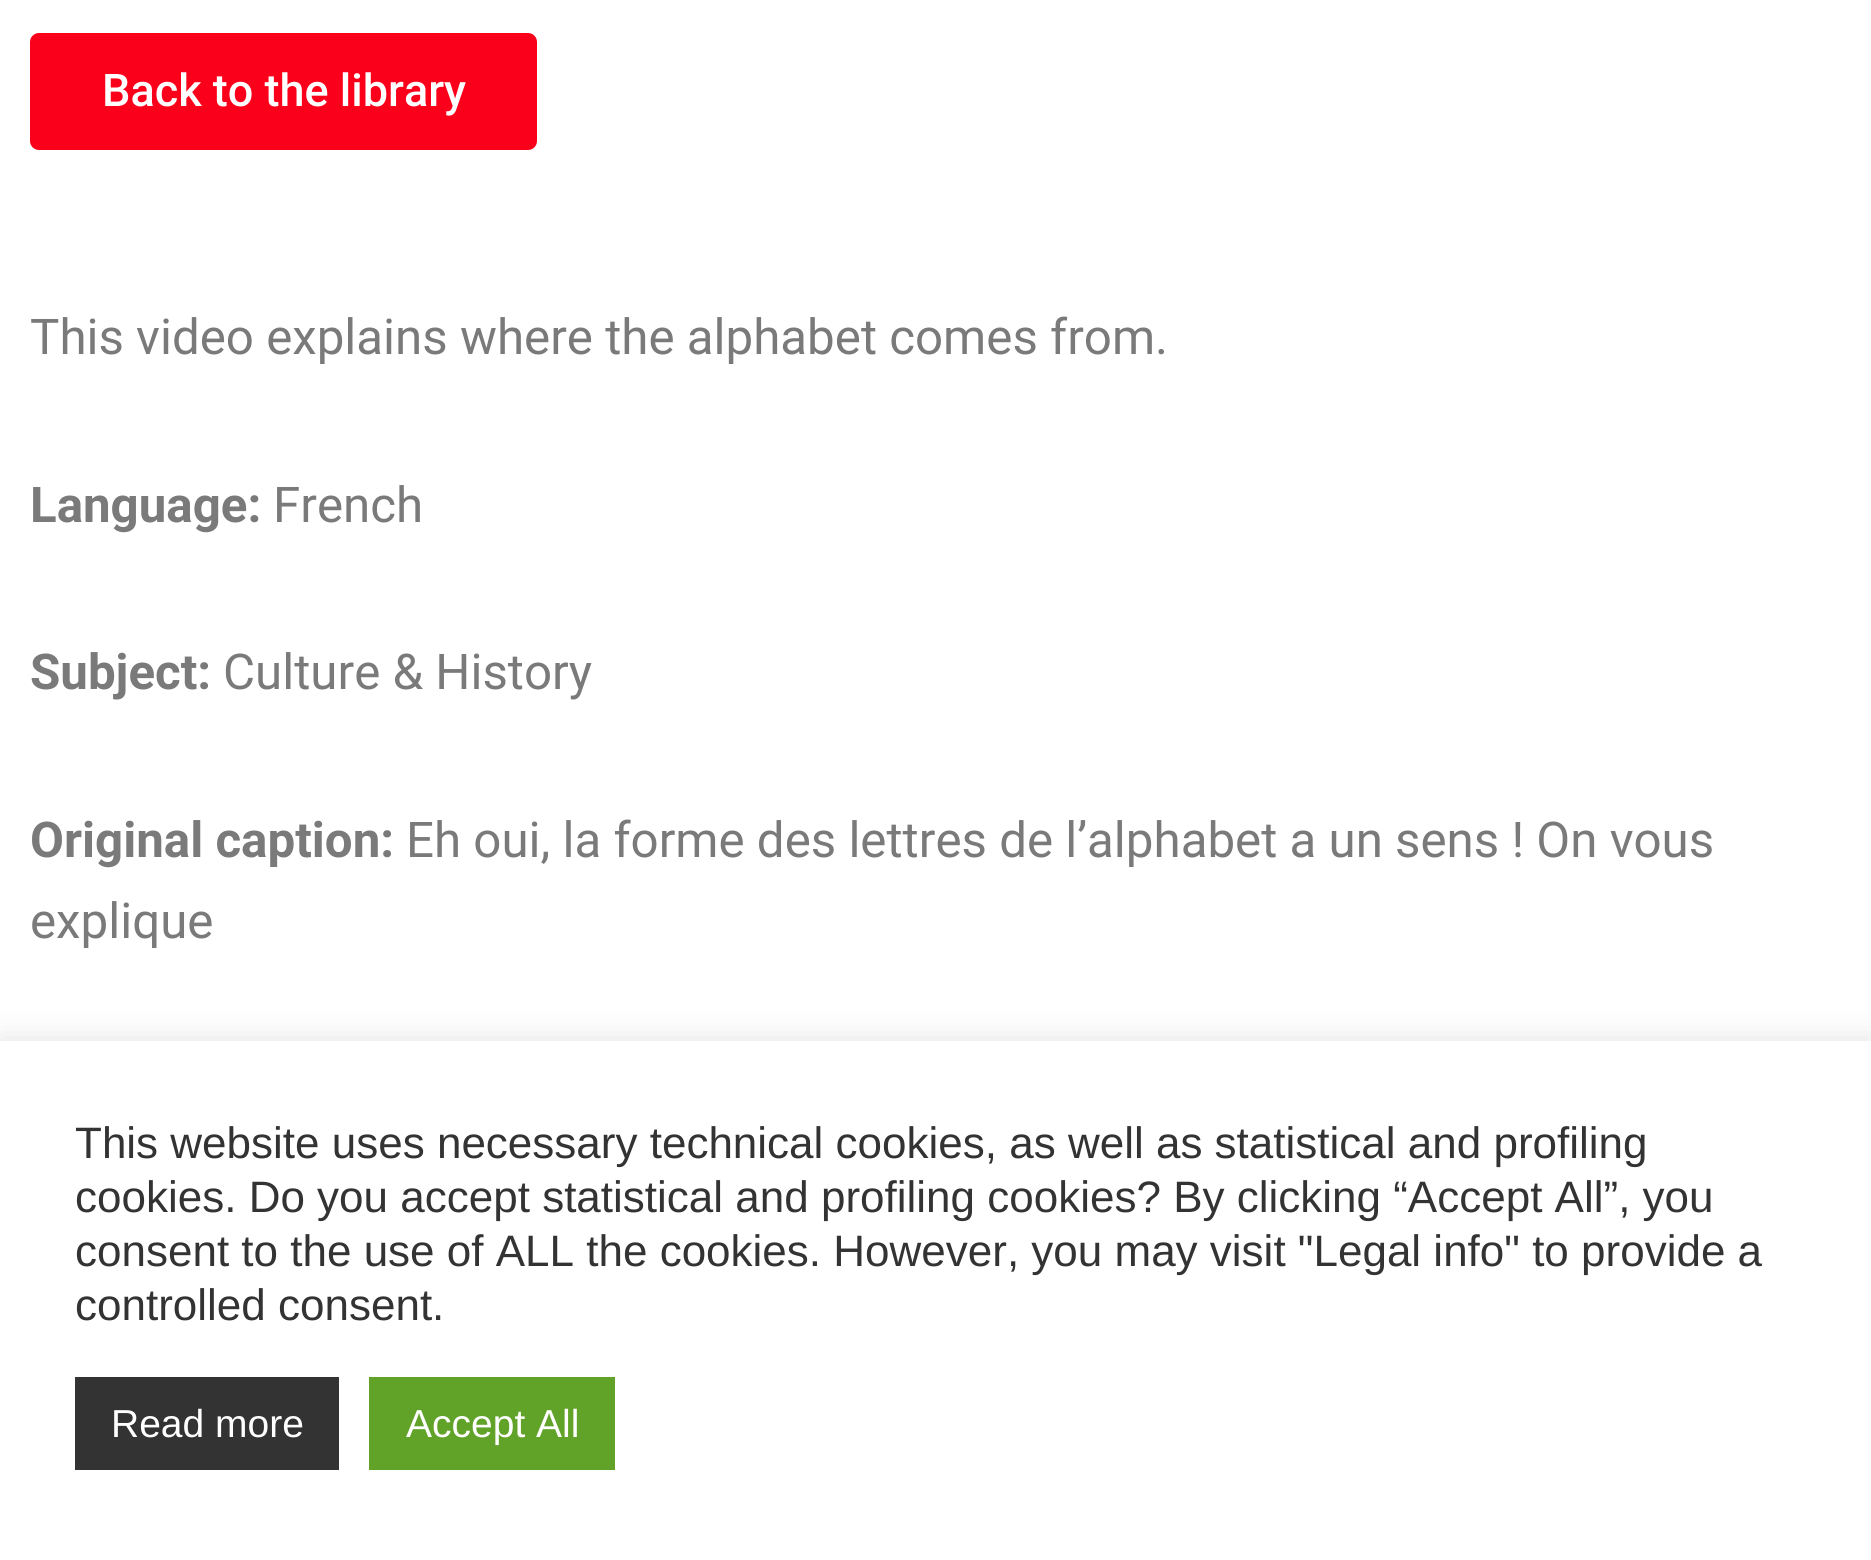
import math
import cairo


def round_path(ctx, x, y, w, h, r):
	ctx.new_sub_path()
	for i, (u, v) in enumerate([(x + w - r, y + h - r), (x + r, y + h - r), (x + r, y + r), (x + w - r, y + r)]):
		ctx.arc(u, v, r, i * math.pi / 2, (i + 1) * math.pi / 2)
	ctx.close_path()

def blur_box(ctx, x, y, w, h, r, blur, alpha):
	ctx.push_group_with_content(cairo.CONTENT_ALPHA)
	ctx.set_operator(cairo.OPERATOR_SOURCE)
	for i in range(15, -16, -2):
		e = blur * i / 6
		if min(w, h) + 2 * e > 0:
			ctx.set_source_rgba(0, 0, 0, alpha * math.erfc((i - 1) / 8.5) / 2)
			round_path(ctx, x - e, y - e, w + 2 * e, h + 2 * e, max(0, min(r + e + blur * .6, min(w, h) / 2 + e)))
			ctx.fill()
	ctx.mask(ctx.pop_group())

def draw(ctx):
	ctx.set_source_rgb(1, 1, 1)
	ctx.paint()
	ctx.set_source_rgb(0.984, 0, 0.102)
	round_path(ctx, 30, 33, 507, 117, 9)
	ctx.fill()
	ctx.select_font_face('Roboto Medium')
	ctx.set_font_size(45)
	ctx.set_source_rgb(1, 1, 1)
	ctx.move_to(102, 106)
	ctx.show_text('Back to the library')
	ctx.select_font_face('Roboto')
	ctx.set_font_size(49.25)
	ctx.set_source_rgb(0.478, 0.478, 0.478)
	ctx.move_to(30, 354)
	ctx.show_text('This video explains where the alphabet comes from.')
	ctx.select_font_face('Roboto', cairo.FONT_SLANT_NORMAL, cairo.FONT_WEIGHT_BOLD)
	ctx.move_to(30, 522)
	ctx.show_text('Language:')
	ctx.select_font_face('Roboto')
	ctx.move_to(273, 522)
	ctx.show_text('French')
	ctx.select_font_face('Roboto', cairo.FONT_SLANT_NORMAL, cairo.FONT_WEIGHT_BOLD)
	ctx.move_to(30, 689)
	ctx.show_text('Subject:')
	ctx.select_font_face('Roboto')
	ctx.move_to(223, 689)
	ctx.show_text('Culture & History')
	ctx.select_font_face('Roboto', cairo.FONT_SLANT_NORMAL, cairo.FONT_WEIGHT_BOLD)
	ctx.move_to(30, 857)
	ctx.show_text('Original caption:')
	ctx.select_font_face('Roboto')
	ctx.move_to(406, 857)
	ctx.show_text('Eh oui, la forme des lettres de l’alphabet a un sens ! On vous')
	ctx.move_to(30, 938)
	ctx.show_text('explique')
	ctx.set_source_rgb(0.675, 0.671, 0.671)
	blur_box(ctx, 0, 1038, 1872, 519, 0, 15, 0.3)
	ctx.set_source_rgb(1, 1, 1)
	ctx.rectangle(0, 1041, 1871, 519)
	ctx.fill()
	ctx.select_font_face('Liberation Sans')
	ctx.set_font_size(44)
	ctx.set_source_rgb(0.2, 0.2, 0.2)
	for x, y, s in [
		(75, 1158, 'This website uses necessary technical cookies, as well as statistical and profiling'),
		(75, 1212, 'cookies. Do you accept statistical and profiling cookies? By clicking “Accept All”, you'),
		(75, 1266, 'consent to the use of ALL the cookies. However, you may visit "Legal info" to provide a'),
		(75, 1320, 'controlled consent.'),
	]:
		ctx.move_to(x, y)
		ctx.show_text(s)
	ctx.rectangle(75, 1377, 264, 93)
	ctx.fill()
	ctx.set_font_size(39)
	ctx.set_source_rgb(1, 1, 1)
	ctx.move_to(111, 1437)
	ctx.show_text('Read more')
	ctx.set_source_rgb(0.38, 0.635, 0.161)
	ctx.rectangle(369, 1377, 246, 93)
	ctx.fill()
	ctx.set_source_rgb(1, 1, 1)
	ctx.move_to(406, 1437)
	ctx.show_text('Accept All')


surface = cairo.ImageSurface(cairo.FORMAT_RGB24, 1871, 1560)
ctx = cairo.Context(surface)
options = cairo.FontOptions()
options.set_hint_metrics(cairo.HINT_METRICS_OFF)
options.set_hint_style(cairo.HINT_STYLE_NONE)
ctx.set_font_options(options)
ctx.set_miter_limit(4)
draw(ctx)
surface.write_to_png('image.png')
